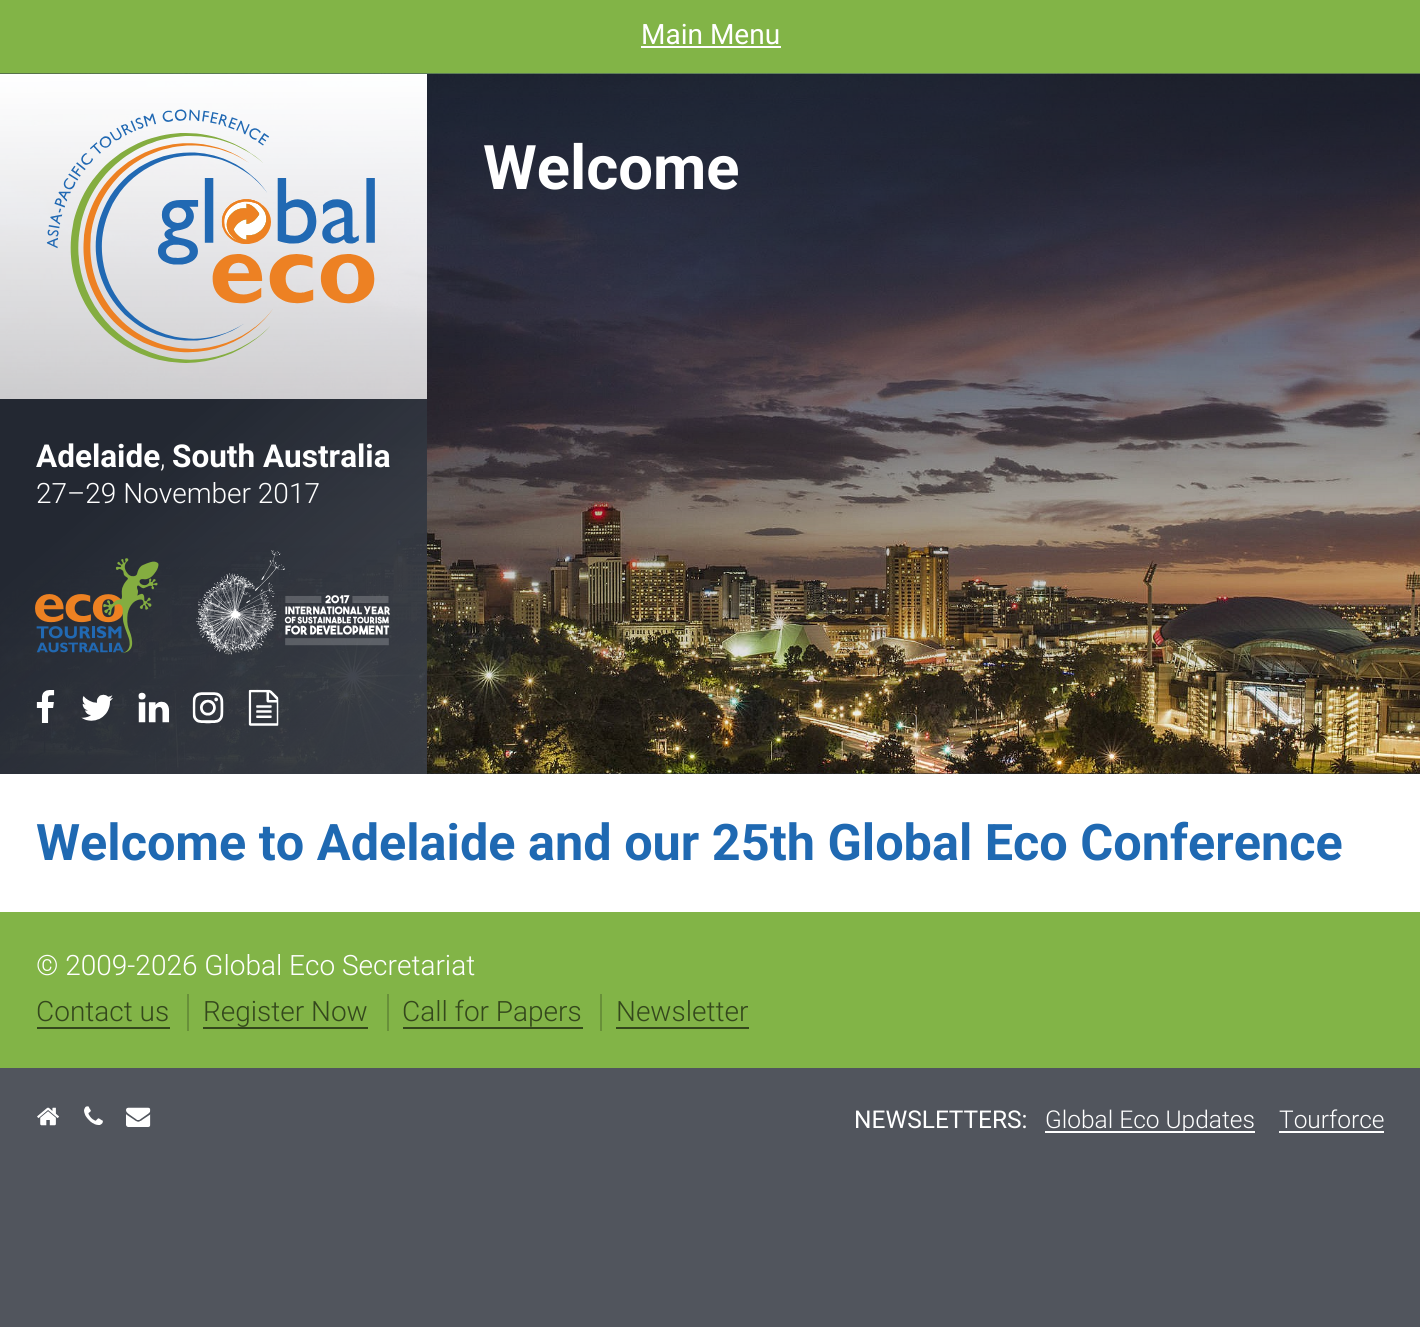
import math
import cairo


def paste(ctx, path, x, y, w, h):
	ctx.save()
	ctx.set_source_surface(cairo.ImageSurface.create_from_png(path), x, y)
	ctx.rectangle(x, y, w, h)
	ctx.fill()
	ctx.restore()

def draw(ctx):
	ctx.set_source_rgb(0.318, 0.333, 0.365)
	ctx.paint()
	ctx.set_source_rgb(0.51, 0.706, 0.278)
	ctx.rectangle(0, 0, 1420, 74)
	ctx.fill()
	ctx.select_font_face('Roboto')
	ctx.set_font_size(28)
	ctx.set_source_rgb(1, 1, 1)
	ctx.move_to(641, 44)
	ctx.show_text('Main Menu')
	ctx.rectangle(641, 46, 140, 2)
	ctx.fill()
	ctx.set_source_rgb(0.137, 0.157, 0.196)
	ctx.rectangle(0, 773, 1420, 1)
	ctx.fill()
	paste(ctx, 'media/1.png', 0, 73, 1420, 701)
	gradient = cairo.LinearGradient(924, 73, 924, 774)
	gradient.add_color_stop_rgba(0, 0.067, 0.078, 0.098, 0.7)
	gradient.add_color_stop_rgba(1, 0.067, 0.078, 0.098, 0)
	ctx.set_source(gradient)
	ctx.rectangle(427, 74, 993, 678)
	ctx.fill()
	ctx.select_font_face('Roboto', cairo.FONT_SLANT_NORMAL, cairo.FONT_WEIGHT_BOLD)
	ctx.set_font_size(61.5)
	ctx.set_source_rgb(1, 1, 1)
	ctx.move_to(483, 189)
	ctx.show_text('Welcome')
	gradient = cairo.LinearGradient(213, 73, 214, 774)
	gradient.add_color_stop_rgba(0, 1, 1, 1, 1)
	gradient.add_color_stop_rgba(1, 1, 1, 1, 0.5)
	ctx.set_source(gradient)
	ctx.rectangle(0, 74, 427, 700)
	ctx.fill()
	paste(ctx, 'media/2.png', 46, 109, 329, 254)
	gradient = cairo.LinearGradient(28, 375, 399, 798)
	gradient.add_color_stop_rgba(0.25, 0.137, 0.157, 0.196, 1)
	gradient.add_color_stop_rgba(1, 0.137, 0.157, 0.196, 0.8)
	ctx.set_source(gradient)
	ctx.rectangle(0, 399, 427, 375)
	ctx.fill()
	ctx.set_font_size(31.5)
	ctx.set_source_rgb(1, 1, 1)
	ctx.move_to(36, 467)
	ctx.show_text('Adelaide')
	ctx.select_font_face('Roboto Light')
	ctx.set_font_size(28)
	ctx.move_to(160, 467)
	ctx.show_text(',')
	ctx.select_font_face('Roboto', cairo.FONT_SLANT_NORMAL, cairo.FONT_WEIGHT_BOLD)
	ctx.set_font_size(31.5)
	ctx.move_to(172, 467)
	ctx.show_text('South Australia')
	ctx.select_font_face('Roboto Light')
	ctx.set_font_size(28)
	ctx.move_to(36, 503)
	ctx.show_text('27–29 November 2017')
	paste(ctx, 'media/3.png', 35, 558, 124, 95)
	paste(ctx, 'media/4.png', 196, 550, 194, 105)
	paste(ctx, 'media/5.png', 36, 690, 19, 33)
	paste(ctx, 'media/6.png', 81, 694, 32, 27)
	paste(ctx, 'media/7.png', 138, 692, 32, 31)
	paste(ctx, 'media/8.png', 192, 692, 32, 32)
	paste(ctx, 'media/9.png', 248, 689, 31, 37)
	ctx.rectangle(0, 774, 1420, 138)
	ctx.fill()
	ctx.select_font_face('Roboto', cairo.FONT_SLANT_NORMAL, cairo.FONT_WEIGHT_BOLD)
	ctx.set_font_size(50.4)
	ctx.set_source_rgb(0.122, 0.412, 0.698)
	ctx.move_to(36, 860)
	ctx.show_text('Welcome to Adelaide and our 25th Global Eco Conference')
	ctx.set_source_rgb(0.51, 0.706, 0.278)
	ctx.rectangle(0, 912, 1420, 156)
	ctx.fill()
	ctx.select_font_face('Roboto Light')
	ctx.set_font_size(28)
	ctx.set_source_rgb(1, 1, 1)
	ctx.move_to(36, 975)
	ctx.show_text('© 2009-2026 Global Eco Secretariat')
	ctx.set_source_rgb(0.204, 0.282, 0.11)
	ctx.move_to(36, 1021)
	ctx.show_text('Contact us')
	ctx.rectangle(37, 1027, 133, 2)
	ctx.fill()
	ctx.set_source_rgb(0.408, 0.565, 0.224)
	ctx.rectangle(187, 994, 2, 37)
	ctx.fill()
	ctx.set_source_rgb(0.204, 0.282, 0.11)
	ctx.move_to(203, 1021)
	ctx.show_text('Register Now')
	ctx.rectangle(203, 1027, 165, 2)
	ctx.fill()
	ctx.set_source_rgb(0.408, 0.565, 0.224)
	ctx.rectangle(387, 994, 2, 37)
	ctx.fill()
	ctx.set_source_rgb(0.204, 0.282, 0.11)
	ctx.move_to(402, 1021)
	ctx.show_text('Call for Papers')
	ctx.rectangle(403, 1027, 180, 2)
	ctx.fill()
	ctx.set_source_rgb(0.408, 0.565, 0.224)
	ctx.rectangle(600, 994, 2, 37)
	ctx.fill()
	ctx.set_source_rgb(0.204, 0.282, 0.11)
	ctx.move_to(616, 1021)
	ctx.show_text('Newsletter')
	ctx.rectangle(616, 1027, 133, 2)
	ctx.fill()
	paste(ctx, 'media/10.png', 37, 1107, 22, 19)
	paste(ctx, 'media/11.png', 84, 1106, 19, 19)
	paste(ctx, 'media/12.png', 126, 1107, 25, 20)
	ctx.select_font_face('Roboto')
	ctx.set_font_size(24.5)
	ctx.set_source_rgb(1, 1, 1)
	ctx.move_to(854, 1128)
	ctx.show_text('NEWSLETTERS:')
	ctx.rectangle(1045, 1131, 210, 2)
	ctx.fill()
	ctx.select_font_face('Roboto Light')
	ctx.move_to(1045, 1128)
	ctx.show_text('Global Eco Updates')
	ctx.move_to(1279, 1128)
	ctx.show_text('Tourforce')
	ctx.rectangle(1279, 1131, 105, 2)
	ctx.fill()


surface = cairo.ImageSurface(cairo.FORMAT_RGB24, 1420, 1327)
ctx = cairo.Context(surface)
options = cairo.FontOptions()
options.set_hint_metrics(cairo.HINT_METRICS_OFF)
options.set_hint_style(cairo.HINT_STYLE_NONE)
ctx.set_font_options(options)
ctx.set_miter_limit(4)
draw(ctx)
surface.write_to_png('image.png')
